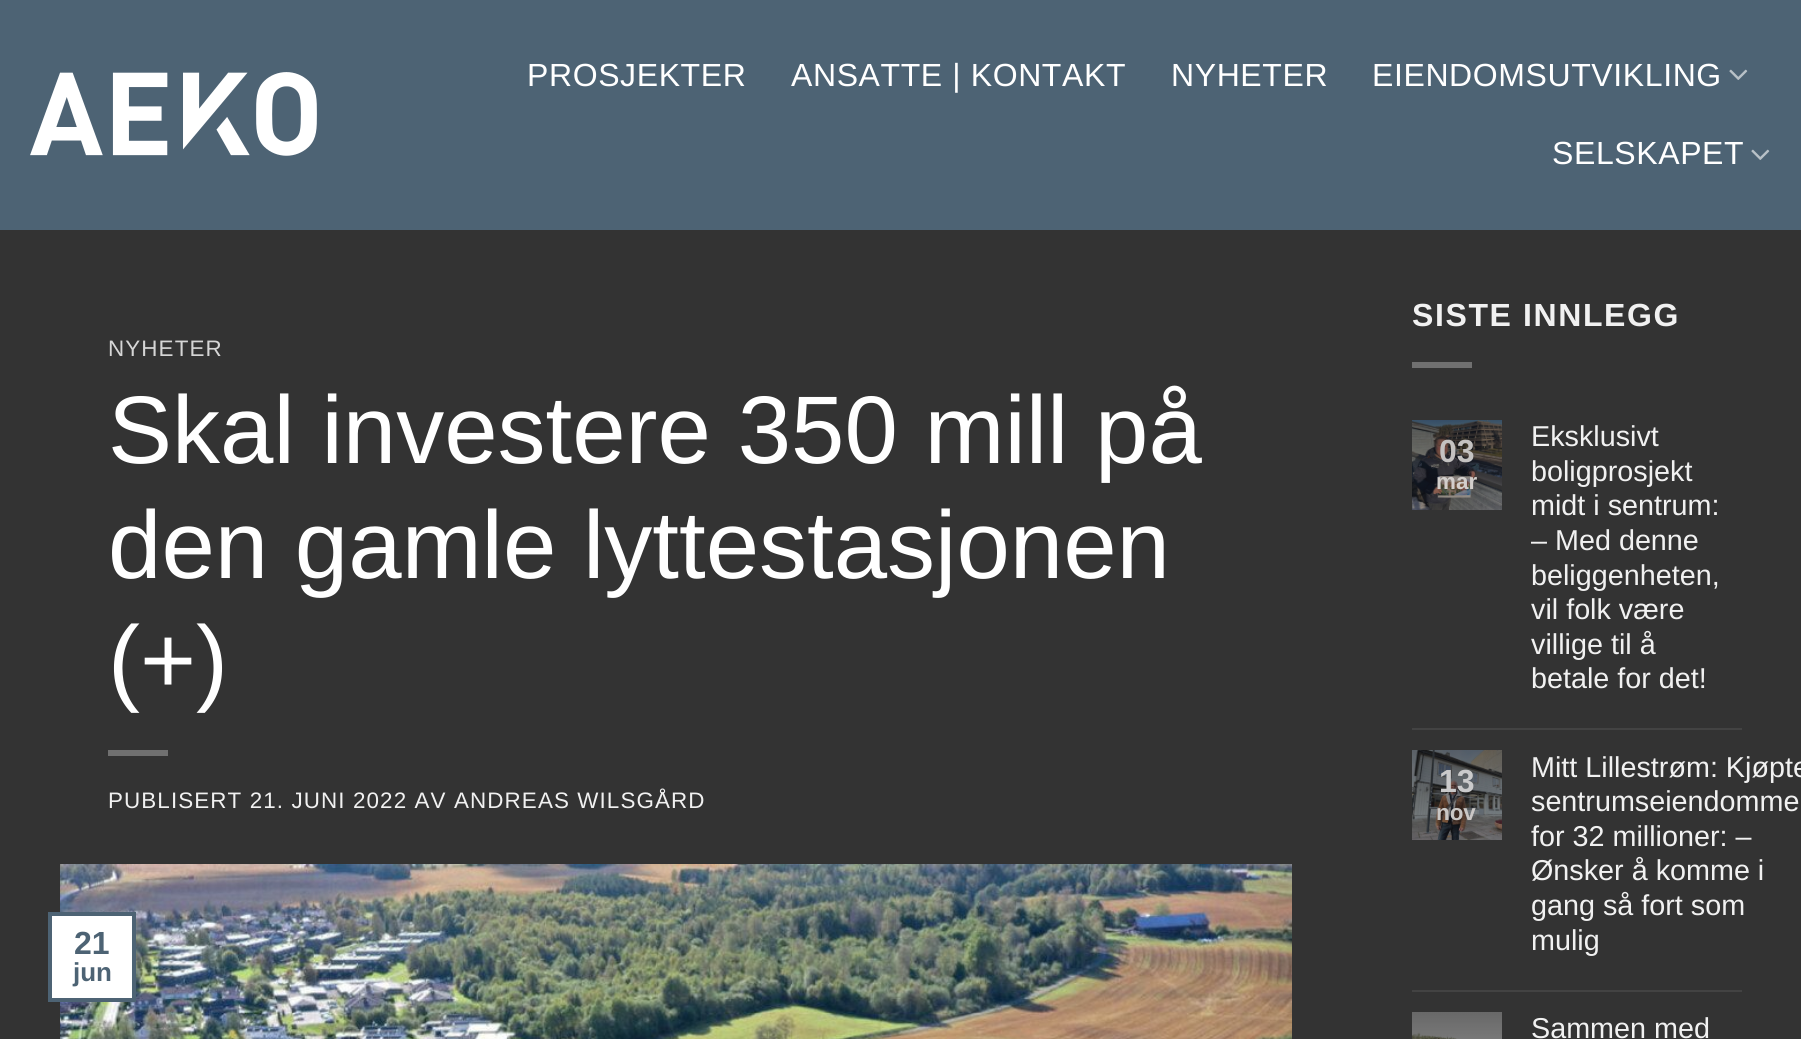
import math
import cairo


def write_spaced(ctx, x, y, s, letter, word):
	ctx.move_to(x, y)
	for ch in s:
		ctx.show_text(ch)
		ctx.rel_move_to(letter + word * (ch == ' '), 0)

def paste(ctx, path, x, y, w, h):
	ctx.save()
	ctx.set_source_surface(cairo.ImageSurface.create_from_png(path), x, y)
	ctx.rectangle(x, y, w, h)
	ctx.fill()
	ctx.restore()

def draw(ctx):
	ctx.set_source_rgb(0.2, 0.2, 0.2)
	ctx.paint()
	ctx.set_source_rgb(0.302, 0.388, 0.455)
	ctx.rectangle(0, 0, 1801, 230)
	ctx.fill()
	paste(ctx, 'media/1.png', 30, 72, 287, 84)
	ctx.select_font_face('Liberation Sans')
	ctx.set_font_size(32)
	ctx.set_source_rgb(1, 1, 1)
	for x, y, s in [
		(527, 86, 'PROSJEKTER'),
		(791, 86, 'ANSATTE | KONTAKT'),
		(1171, 86, 'NYHETER'),
		(1372, 86, 'EIENDOMSUTVIKLING'),
	]:
		write_spaced(ctx, x, y, s, 0.6, 0)
	paste(ctx, 'media/2.png', 1729, 69, 19, 11)
	write_spaced(ctx, 1552, 164, 'SELSKAPET', 0.6, 0)
	paste(ctx, 'media/2.png', 1751, 149, 19, 11)
	ctx.set_font_size(22.4)
	ctx.set_source_rgb(0.839, 0.839, 0.839)
	write_spaced(ctx, 108, 356, 'NYHETER', 1.1, 0)
	ctx.set_font_size(96)
	ctx.set_source_rgb(1, 1, 1)
	for x, y, s in [
		(108, 463, 'Skal investere 350 mill på'),
		(108, 578, 'den gamle lyttestasjonen'),
		(108, 693, '(+)'),
	]:
		ctx.move_to(x, y)
		ctx.show_text(s)
	ctx.set_source_rgb(0.439, 0.439, 0.439)
	ctx.rectangle(108, 750, 60, 6)
	ctx.fill()
	ctx.set_font_size(22.4)
	ctx.set_source_rgb(0.945, 0.945, 0.945)
	write_spaced(ctx, 108, 808, 'PUBLISERT 21. JUNI 2022 AV ANDREAS WILSGÅRD', 1.1, 0)
	paste(ctx, 'media/3.png', 60, 864, 1232, 175)
	ctx.set_source_rgb(1, 1, 1)
	ctx.rectangle(50, 914, 84, 86)
	ctx.fill_preserve()
	ctx.set_source_rgb(0.302, 0.388, 0.455)
	ctx.set_line_width(4)
	ctx.stroke()
	ctx.select_font_face('Liberation Sans', cairo.FONT_SLANT_NORMAL, cairo.FONT_WEIGHT_BOLD)
	ctx.set_font_size(32)
	ctx.move_to(74, 954)
	ctx.show_text('21')
	ctx.set_font_size(26)
	ctx.move_to(73, 981)
	ctx.show_text('jun')
	ctx.set_font_size(32)
	ctx.set_source_rgb(0.945, 0.945, 0.945)
	write_spaced(ctx, 1412, 326, 'SISTE INNLEGG', 1.6, 0)
	ctx.set_source_rgb(0.439, 0.439, 0.439)
	ctx.rectangle(1412, 362, 60, 6)
	ctx.fill()
	paste(ctx, 'media/4.png', 1412, 420, 90, 90)
	ctx.set_source_rgb(0.769, 0.761, 0.757)
	ctx.move_to(1439, 462)
	ctx.show_text('03')
	ctx.set_font_size(22.4)
	ctx.set_source_rgb(0.827, 0.812, 0.8)
	ctx.move_to(1436, 489)
	ctx.show_text('mar')
	ctx.select_font_face('Liberation Sans')
	ctx.set_font_size(28.75)
	ctx.set_source_rgb(0.945, 0.945, 0.945)
	for x, y, s in [
		(1531, 446, 'Eksklusivt'),
		(1531, 481, 'boligprosjekt'),
		(1531, 515, 'midt i sentrum:'),
		(1531, 550, '– Med denne'),
		(1531, 585, 'beliggenheten,'),
		(1531, 619, 'vil folk være'),
		(1531, 654, 'villige til å'),
		(1531, 688, 'betale for det!'),
	]:
		ctx.move_to(x, y)
		ctx.show_text(s)
	ctx.set_source_rgb(0.263, 0.263, 0.263)
	ctx.rectangle(1412, 728, 330, 2)
	ctx.fill()
	paste(ctx, 'media/5.png', 1412, 750, 90, 90)
	ctx.select_font_face('Liberation Sans', cairo.FONT_SLANT_NORMAL, cairo.FONT_WEIGHT_BOLD)
	ctx.set_font_size(32)
	ctx.set_source_rgb(0.792, 0.792, 0.796)
	ctx.move_to(1439, 792)
	ctx.show_text('13')
	ctx.set_font_size(22.4)
	ctx.set_source_rgb(0.792, 0.78, 0.773)
	ctx.move_to(1436, 820)
	ctx.show_text('nov')
	ctx.select_font_face('Liberation Sans')
	ctx.set_font_size(28.75)
	ctx.set_source_rgb(0.945, 0.945, 0.945)
	for x, y, s in [
		(1531, 777, 'Mitt Lillestrøm: Kjøpte'),
		(1531, 811, 'sentrumseiendomme'),
		(1531, 846, 'for 32 millioner: –'),
		(1531, 880, 'Ønsker å komme i'),
		(1531, 915, 'gang så fort som'),
		(1531, 950, 'mulig'),
	]:
		ctx.move_to(x, y)
		ctx.show_text(s)
	ctx.set_source_rgb(0.263, 0.263, 0.263)
	ctx.rectangle(1412, 990, 330, 2)
	ctx.fill()
	paste(ctx, 'media/6.png', 1412, 1012, 90, 27)
	ctx.set_source_rgb(0.945, 0.945, 0.945)
	ctx.move_to(1531, 1038)
	ctx.show_text('Sammen med')


surface = cairo.ImageSurface(cairo.FORMAT_RGB24, 1801, 1039)
ctx = cairo.Context(surface)
options = cairo.FontOptions()
options.set_hint_metrics(cairo.HINT_METRICS_OFF)
options.set_hint_style(cairo.HINT_STYLE_NONE)
ctx.set_font_options(options)
ctx.set_miter_limit(4)
draw(ctx)
surface.write_to_png('image.png')
